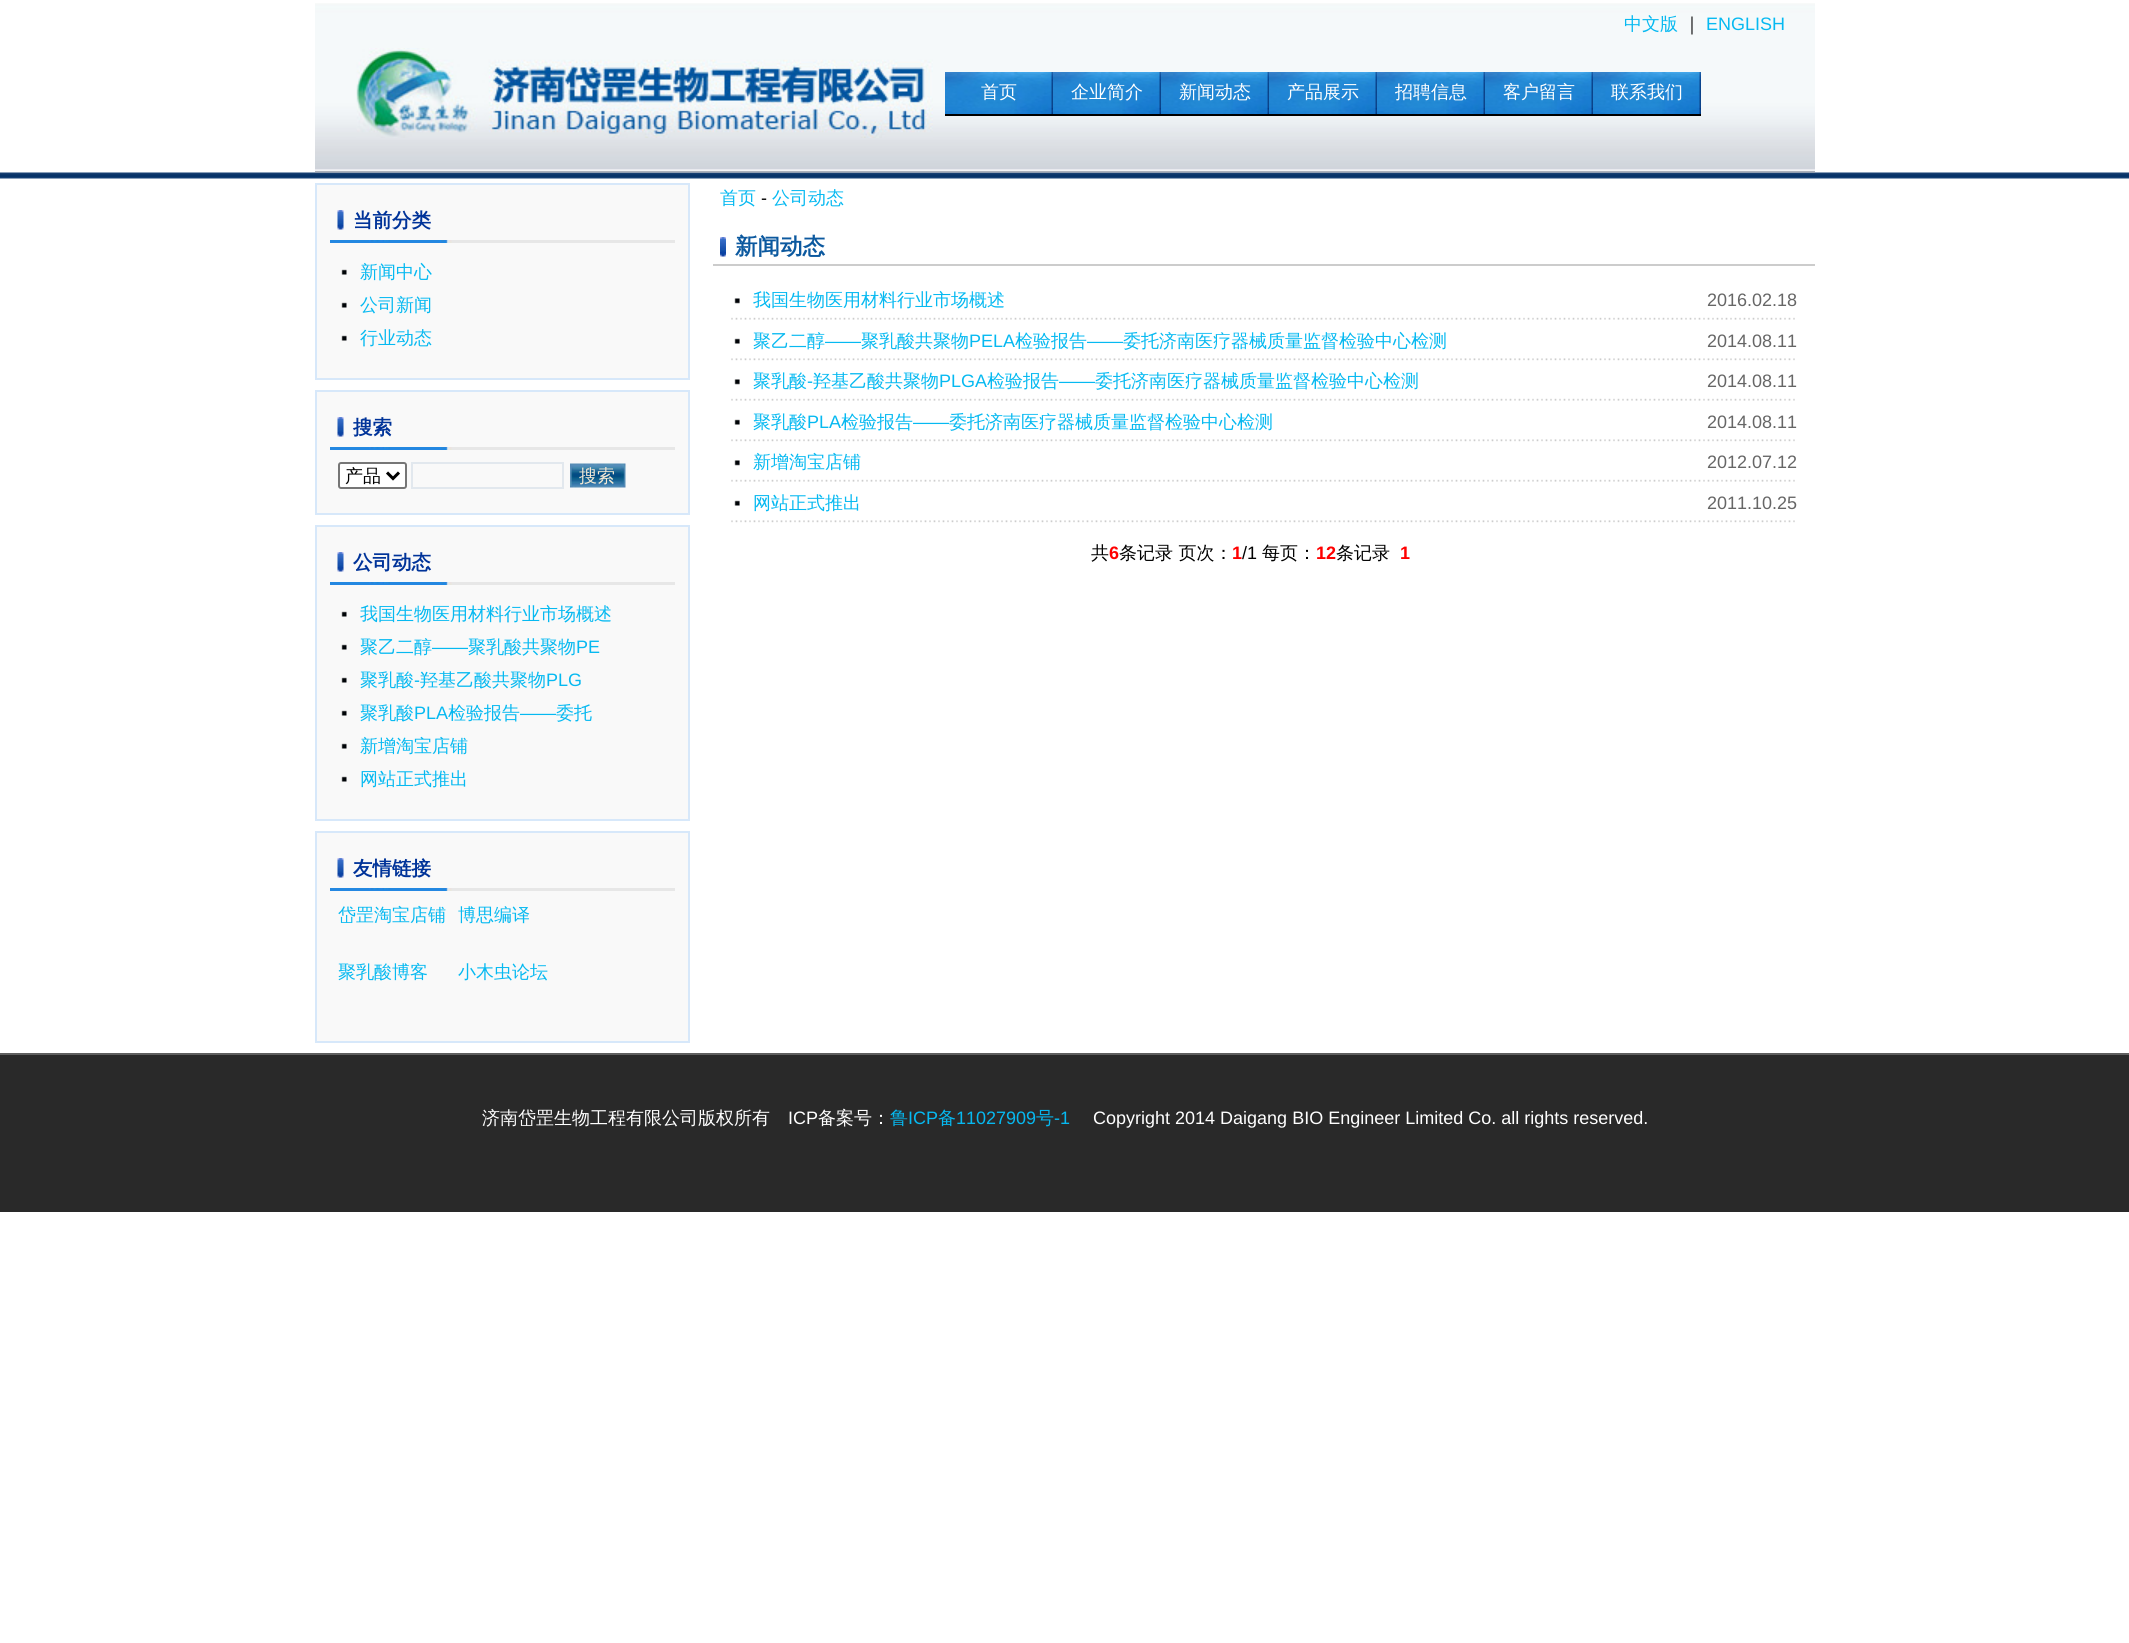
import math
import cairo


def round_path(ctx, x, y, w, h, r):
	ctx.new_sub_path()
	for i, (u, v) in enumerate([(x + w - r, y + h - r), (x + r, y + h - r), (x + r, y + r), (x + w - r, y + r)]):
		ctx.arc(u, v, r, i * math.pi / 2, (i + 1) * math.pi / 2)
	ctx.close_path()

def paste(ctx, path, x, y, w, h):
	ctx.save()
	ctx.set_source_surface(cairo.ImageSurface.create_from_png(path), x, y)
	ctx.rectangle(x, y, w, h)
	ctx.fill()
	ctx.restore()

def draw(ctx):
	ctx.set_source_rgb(1, 1, 1)
	ctx.paint()
	paste(ctx, 'media/1.png', 0, 172, 2129, 7)
	paste(ctx, 'media/2.png', 315, 3, 1500, 170)
	ctx.select_font_face('WenQuanYi Zen Hei Medium')
	ctx.set_font_size(18)
	ctx.set_source_rgb(0.024, 0.725, 0.945)
	ctx.move_to(1624, 30)
	ctx.show_text('中文版')
	ctx.set_source_rgb(0, 0, 0)
	ctx.move_to(1683, 30)
	ctx.show_text('｜')
	ctx.select_font_face('Liberation Sans')
	ctx.set_source_rgb(0.024, 0.725, 0.945)
	ctx.move_to(1706, 30)
	ctx.show_text('ENGLISH')
	paste(ctx, 'media/3.png', 356, 48, 577, 90)
	paste(ctx, 'media/4.png', 945, 72, 108, 42)
	ctx.set_source_rgb(0, 0, 0)
	ctx.rectangle(945, 114, 756, 2)
	ctx.fill()
	ctx.select_font_face('WenQuanYi Zen Hei Medium')
	ctx.set_source_rgb(1, 1, 1)
	ctx.move_to(981, 98)
	ctx.show_text('首页')
	paste(ctx, 'media/5.png', 1053, 72, 108, 42)
	ctx.move_to(1071, 98)
	ctx.show_text('企业简介')
	paste(ctx, 'media/6.png', 1161, 72, 108, 42)
	ctx.move_to(1179, 98)
	ctx.show_text('新闻动态')
	paste(ctx, 'media/7.png', 1269, 72, 108, 42)
	ctx.move_to(1287, 98)
	ctx.show_text('产品展示')
	paste(ctx, 'media/4.png', 1377, 72, 108, 42)
	ctx.move_to(1395, 98)
	ctx.show_text('招聘信息')
	paste(ctx, 'media/8.png', 1485, 72, 108, 42)
	ctx.move_to(1503, 98)
	ctx.show_text('客户留言')
	paste(ctx, 'media/4.png', 1593, 72, 108, 42)
	ctx.move_to(1611, 98)
	ctx.show_text('联系我们')
	ctx.set_source_rgb(0.976, 0.976, 0.976)
	ctx.rectangle(316, 184, 373, 195)
	ctx.fill_preserve()
	ctx.set_source_rgb(0.843, 0.91, 0.98)
	ctx.stroke()
	paste(ctx, 'media/9.png', 330, 240, 345, 3)
	paste(ctx, 'media/10.png', 337, 210, 7, 20)
	ctx.select_font_face('WenQuanYi Zen Hei', cairo.FONT_SLANT_NORMAL, cairo.FONT_WEIGHT_BOLD)
	ctx.set_font_size(19.5)
	ctx.set_source_rgb(0, 0.2, 0.6)
	ctx.move_to(353, 227)
	ctx.show_text('当前分类')
	paste(ctx, 'media/11.png', 341, 269, 6, 6)
	ctx.select_font_face('WenQuanYi Zen Hei Medium')
	ctx.set_font_size(18)
	ctx.set_source_rgb(0.024, 0.725, 0.945)
	ctx.move_to(360, 278)
	ctx.show_text('新闻中心')
	paste(ctx, 'media/11.png', 341, 302, 6, 6)
	ctx.move_to(360, 311)
	ctx.show_text('公司新闻')
	paste(ctx, 'media/11.png', 341, 335, 6, 6)
	ctx.move_to(360, 344)
	ctx.show_text('行业动态')
	ctx.set_source_rgb(0.976, 0.976, 0.976)
	ctx.rectangle(316, 391, 373, 123)
	ctx.fill_preserve()
	ctx.set_source_rgb(0.843, 0.91, 0.98)
	ctx.stroke()
	paste(ctx, 'media/9.png', 330, 447, 345, 3)
	paste(ctx, 'media/10.png', 337, 417, 7, 20)
	ctx.select_font_face('WenQuanYi Zen Hei', cairo.FONT_SLANT_NORMAL, cairo.FONT_WEIGHT_BOLD)
	ctx.set_font_size(19.5)
	ctx.set_source_rgb(0, 0.2, 0.6)
	ctx.move_to(353, 434)
	ctx.show_text('搜索')
	ctx.set_source_rgb(1, 1, 1)
	round_path(ctx, 339, 463, 67, 25, 2)
	ctx.fill_preserve()
	ctx.set_source_rgb(0.463, 0.463, 0.463)
	ctx.stroke()
	ctx.new_path()
	ctx.move_to(387, 472.5)
	ctx.line_to(393, 478.5)
	ctx.line_to(399, 472.5)
	ctx.set_source_rgb(0, 0, 0)
	ctx.set_line_width(3)
	ctx.stroke()
	ctx.select_font_face('WenQuanYi Zen Hei Medium')
	ctx.set_font_size(18)
	ctx.move_to(345, 482)
	ctx.show_text('产品')
	ctx.rectangle(412, 463, 151, 25)
	ctx.set_source_rgb(0.886, 0.91, 0.933)
	ctx.set_line_width(2)
	ctx.stroke()
	paste(ctx, 'media/12.png', 570, 463, 56, 25)
	ctx.set_source_rgb(0.957, 0.914, 0.835)
	ctx.move_to(579, 482)
	ctx.show_text('搜索')
	ctx.set_source_rgb(0.976, 0.976, 0.976)
	ctx.rectangle(316, 526, 373, 294)
	ctx.fill_preserve()
	ctx.set_source_rgb(0.843, 0.91, 0.98)
	ctx.stroke()
	paste(ctx, 'media/9.png', 330, 582, 345, 3)
	paste(ctx, 'media/10.png', 337, 552, 7, 20)
	ctx.select_font_face('WenQuanYi Zen Hei', cairo.FONT_SLANT_NORMAL, cairo.FONT_WEIGHT_BOLD)
	ctx.set_font_size(19.5)
	ctx.set_source_rgb(0, 0.2, 0.6)
	ctx.move_to(353, 569)
	ctx.show_text('公司动态')
	paste(ctx, 'media/11.png', 341, 611, 6, 6)
	ctx.select_font_face('WenQuanYi Zen Hei Medium')
	ctx.set_font_size(18)
	ctx.set_source_rgb(0.024, 0.725, 0.945)
	ctx.move_to(360, 620)
	ctx.show_text('我国生物医用材料行业市场概述')
	paste(ctx, 'media/11.png', 341, 644, 6, 6)
	ctx.move_to(360, 653)
	ctx.show_text('聚乙二醇')
	ctx.select_font_face('Liberation Sans')
	ctx.move_to(432, 653)
	ctx.show_text('——')
	ctx.select_font_face('WenQuanYi Zen Hei Medium')
	ctx.move_to(468, 653)
	ctx.show_text('聚乳酸共聚物')
	ctx.select_font_face('Liberation Sans')
	ctx.move_to(576, 653)
	ctx.show_text('PE')
	paste(ctx, 'media/11.png', 341, 677, 6, 6)
	ctx.select_font_face('WenQuanYi Zen Hei Medium')
	ctx.move_to(360, 686)
	ctx.show_text('聚乳酸')
	ctx.select_font_face('Liberation Sans')
	ctx.move_to(414, 686)
	ctx.show_text('-')
	ctx.select_font_face('WenQuanYi Zen Hei Medium')
	ctx.move_to(420, 686)
	ctx.show_text('羟基乙酸共聚物')
	ctx.select_font_face('Liberation Sans')
	ctx.move_to(546, 686)
	ctx.show_text('PLG')
	paste(ctx, 'media/11.png', 341, 710, 6, 6)
	ctx.select_font_face('WenQuanYi Zen Hei Medium')
	ctx.move_to(360, 719)
	ctx.show_text('聚乳酸')
	ctx.select_font_face('Liberation Sans')
	ctx.move_to(414, 719)
	ctx.show_text('PLA')
	ctx.select_font_face('WenQuanYi Zen Hei Medium')
	ctx.move_to(448, 719)
	ctx.show_text('检验报告')
	ctx.select_font_face('Liberation Sans')
	ctx.move_to(520, 719)
	ctx.show_text('——')
	ctx.select_font_face('WenQuanYi Zen Hei Medium')
	ctx.move_to(556, 719)
	ctx.show_text('委托')
	paste(ctx, 'media/11.png', 341, 743, 6, 6)
	ctx.move_to(360, 752)
	ctx.show_text('新增淘宝店铺')
	paste(ctx, 'media/11.png', 341, 776, 6, 6)
	ctx.move_to(360, 785)
	ctx.show_text('网站正式推出')
	ctx.set_source_rgb(0.976, 0.976, 0.976)
	ctx.rectangle(316, 832, 373, 210)
	ctx.fill_preserve()
	ctx.set_source_rgb(0.843, 0.91, 0.98)
	ctx.stroke()
	paste(ctx, 'media/9.png', 330, 888, 345, 3)
	paste(ctx, 'media/10.png', 337, 858, 7, 20)
	ctx.select_font_face('WenQuanYi Zen Hei', cairo.FONT_SLANT_NORMAL, cairo.FONT_WEIGHT_BOLD)
	ctx.set_font_size(19.5)
	ctx.set_source_rgb(0, 0.2, 0.6)
	ctx.move_to(353, 875)
	ctx.show_text('友情链接')
	ctx.select_font_face('WenQuanYi Zen Hei Medium')
	ctx.set_font_size(18)
	ctx.set_source_rgb(0.024, 0.725, 0.945)
	for x, y, s in [
		(338, 921, '岱罡淘宝店铺'),
		(458, 921, '博思编译'),
		(338, 978, '聚乳酸博客'),
		(458, 978, '小木虫论坛'),
		(720, 204, '首页'),
	]:
		ctx.move_to(x, y)
		ctx.show_text(s)
	ctx.select_font_face('Liberation Sans')
	ctx.set_source_rgb(0, 0, 0)
	ctx.move_to(761, 204)
	ctx.show_text('-')
	ctx.select_font_face('WenQuanYi Zen Hei Medium')
	ctx.set_source_rgb(0.024, 0.725, 0.945)
	ctx.move_to(772, 204)
	ctx.show_text('公司动态')
	ctx.set_source_rgb(0.8, 0.8, 0.8)
	ctx.rectangle(713, 264, 1102, 2)
	ctx.fill()
	paste(ctx, 'media/13.png', 720, 237, 6, 20)
	ctx.select_font_face('WenQuanYi Zen Hei', cairo.FONT_SLANT_NORMAL, cairo.FONT_WEIGHT_BOLD)
	ctx.set_font_size(22.5)
	ctx.set_source_rgb(0.047, 0.349, 0.624)
	ctx.move_to(735, 254)
	ctx.show_text('新闻动态')
	paste(ctx, 'media/14.png', 734, 298, 6, 6)
	ctx.select_font_face('WenQuanYi Zen Hei Medium')
	ctx.set_font_size(18)
	ctx.set_source_rgb(0.024, 0.725, 0.945)
	ctx.move_to(753, 306)
	ctx.show_text('我国生物医用材料行业市场概述')
	ctx.select_font_face('Liberation Sans')
	ctx.set_source_rgb(0.4, 0.4, 0.4)
	ctx.move_to(1707, 306)
	ctx.show_text('2016.02.18')
	paste(ctx, 'media/15.png', 731, 317, 1064, 3)
	paste(ctx, 'media/16.png', 734, 338, 6, 6)
	ctx.select_font_face('WenQuanYi Zen Hei Medium')
	ctx.set_source_rgb(0.024, 0.725, 0.945)
	ctx.move_to(753, 347)
	ctx.show_text('聚乙二醇')
	ctx.select_font_face('Liberation Sans')
	ctx.move_to(825, 347)
	ctx.show_text('——')
	ctx.select_font_face('WenQuanYi Zen Hei Medium')
	ctx.move_to(861, 347)
	ctx.show_text('聚乳酸共聚物')
	ctx.select_font_face('Liberation Sans')
	ctx.move_to(969, 347)
	ctx.show_text('PELA')
	ctx.select_font_face('WenQuanYi Zen Hei Medium')
	ctx.move_to(1015, 347)
	ctx.show_text('检验报告')
	ctx.select_font_face('Liberation Sans')
	ctx.move_to(1087, 347)
	ctx.show_text('——')
	ctx.select_font_face('WenQuanYi Zen Hei Medium')
	ctx.move_to(1123, 347)
	ctx.show_text('委托济南医疗器械质量监督检验中心检测')
	ctx.select_font_face('Liberation Sans')
	ctx.set_source_rgb(0.4, 0.4, 0.4)
	ctx.move_to(1707, 347)
	ctx.show_text('2014.08.11')
	paste(ctx, 'media/17.png', 731, 358, 1064, 3)
	paste(ctx, 'media/14.png', 734, 379, 6, 6)
	ctx.select_font_face('WenQuanYi Zen Hei Medium')
	ctx.set_source_rgb(0.024, 0.725, 0.945)
	ctx.move_to(753, 387)
	ctx.show_text('聚乳酸')
	ctx.select_font_face('Liberation Sans')
	ctx.move_to(807, 387)
	ctx.show_text('-')
	ctx.select_font_face('WenQuanYi Zen Hei Medium')
	ctx.move_to(813, 387)
	ctx.show_text('羟基乙酸共聚物')
	ctx.select_font_face('Liberation Sans')
	ctx.move_to(939, 387)
	ctx.show_text('PLGA')
	ctx.select_font_face('WenQuanYi Zen Hei Medium')
	ctx.move_to(987, 387)
	ctx.show_text('检验报告')
	ctx.select_font_face('Liberation Sans')
	ctx.move_to(1059, 387)
	ctx.show_text('——')
	ctx.select_font_face('WenQuanYi Zen Hei Medium')
	ctx.move_to(1095, 387)
	ctx.show_text('委托济南医疗器械质量监督检验中心检测')
	ctx.select_font_face('Liberation Sans')
	ctx.set_source_rgb(0.4, 0.4, 0.4)
	ctx.move_to(1707, 387)
	ctx.show_text('2014.08.11')
	paste(ctx, 'media/18.png', 731, 398, 1064, 3)
	paste(ctx, 'media/16.png', 734, 419, 6, 6)
	ctx.select_font_face('WenQuanYi Zen Hei Medium')
	ctx.set_source_rgb(0.024, 0.725, 0.945)
	ctx.move_to(753, 428)
	ctx.show_text('聚乳酸')
	ctx.select_font_face('Liberation Sans')
	ctx.move_to(807, 428)
	ctx.show_text('PLA')
	ctx.select_font_face('WenQuanYi Zen Hei Medium')
	ctx.move_to(841, 428)
	ctx.show_text('检验报告')
	ctx.select_font_face('Liberation Sans')
	ctx.move_to(913, 428)
	ctx.show_text('——')
	ctx.select_font_face('WenQuanYi Zen Hei Medium')
	ctx.move_to(949, 428)
	ctx.show_text('委托济南医疗器械质量监督检验中心检测')
	ctx.select_font_face('Liberation Sans')
	ctx.set_source_rgb(0.4, 0.4, 0.4)
	ctx.move_to(1707, 428)
	ctx.show_text('2014.08.11')
	paste(ctx, 'media/17.png', 731, 439, 1064, 3)
	paste(ctx, 'media/14.png', 734, 460, 6, 6)
	ctx.select_font_face('WenQuanYi Zen Hei Medium')
	ctx.set_source_rgb(0.024, 0.725, 0.945)
	ctx.move_to(753, 468)
	ctx.show_text('新增淘宝店铺')
	ctx.select_font_face('Liberation Sans')
	ctx.set_source_rgb(0.4, 0.4, 0.4)
	ctx.move_to(1707, 468)
	ctx.show_text('2012.07.12')
	paste(ctx, 'media/18.png', 731, 479, 1064, 3)
	paste(ctx, 'media/16.png', 734, 500, 6, 6)
	ctx.select_font_face('WenQuanYi Zen Hei Medium')
	ctx.set_source_rgb(0.024, 0.725, 0.945)
	ctx.move_to(753, 509)
	ctx.show_text('网站正式推出')
	ctx.select_font_face('Liberation Sans')
	ctx.set_source_rgb(0.4, 0.4, 0.4)
	ctx.move_to(1707, 509)
	ctx.show_text('2011.10.25')
	paste(ctx, 'media/19.png', 731, 520, 1064, 3)
	ctx.select_font_face('WenQuanYi Zen Hei Medium')
	ctx.set_source_rgb(0, 0, 0)
	ctx.move_to(1091, 559)
	ctx.show_text('共')
	ctx.select_font_face('Liberation Sans', cairo.FONT_SLANT_NORMAL, cairo.FONT_WEIGHT_BOLD)
	ctx.set_source_rgb(1, 0, 0)
	ctx.move_to(1109, 559)
	ctx.show_text('6')
	ctx.select_font_face('WenQuanYi Zen Hei Medium')
	ctx.set_source_rgb(0, 0, 0)
	ctx.move_to(1119, 559)
	ctx.show_text('条记录 页次：')
	ctx.select_font_face('Liberation Sans', cairo.FONT_SLANT_NORMAL, cairo.FONT_WEIGHT_BOLD)
	ctx.set_source_rgb(1, 0, 0)
	ctx.move_to(1232, 559)
	ctx.show_text('1')
	ctx.select_font_face('Liberation Sans')
	ctx.set_source_rgb(0, 0, 0)
	ctx.move_to(1242, 559)
	ctx.show_text('/1')
	ctx.select_font_face('WenQuanYi Zen Hei Medium')
	ctx.move_to(1262, 559)
	ctx.show_text('每页：')
	ctx.select_font_face('Liberation Sans', cairo.FONT_SLANT_NORMAL, cairo.FONT_WEIGHT_BOLD)
	ctx.set_source_rgb(1, 0, 0)
	ctx.move_to(1316, 559)
	ctx.show_text('12')
	ctx.select_font_face('WenQuanYi Zen Hei Medium')
	ctx.set_source_rgb(0, 0, 0)
	ctx.move_to(1336, 559)
	ctx.show_text('条记录')
	ctx.select_font_face('Liberation Sans', cairo.FONT_SLANT_NORMAL, cairo.FONT_WEIGHT_BOLD)
	ctx.set_source_rgb(1, 0, 0)
	ctx.move_to(1400, 559)
	ctx.show_text('1')
	ctx.set_source_rgb(0.161, 0.161, 0.161)
	ctx.rectangle(0, 1055, 2129, 157)
	ctx.fill()
	ctx.set_source_rgb(0.373, 0.373, 0.373)
	ctx.rectangle(0, 1053, 2129, 2)
	ctx.fill()
	ctx.select_font_face('WenQuanYi Zen Hei Medium')
	ctx.set_source_rgb(1, 1, 1)
	ctx.move_to(482, 1124)
	ctx.show_text('济南岱罡生物工程有限公司版权所有')
	ctx.select_font_face('Liberation Sans')
	ctx.move_to(788, 1124)
	ctx.show_text('ICP')
	ctx.select_font_face('WenQuanYi Zen Hei Medium')
	ctx.move_to(818, 1124)
	ctx.show_text('备案号：')
	ctx.set_source_rgb(0.024, 0.725, 0.945)
	ctx.move_to(890, 1124)
	ctx.show_text('鲁')
	ctx.select_font_face('Liberation Sans')
	ctx.move_to(908, 1124)
	ctx.show_text('ICP')
	ctx.select_font_face('WenQuanYi Zen Hei Medium')
	ctx.move_to(938, 1124)
	ctx.show_text('备')
	ctx.select_font_face('Liberation Sans')
	ctx.move_to(956, 1124)
	ctx.show_text('11027909')
	ctx.select_font_face('WenQuanYi Zen Hei Medium')
	ctx.move_to(1036, 1124)
	ctx.show_text('号')
	ctx.select_font_face('Liberation Sans')
	ctx.move_to(1054, 1124)
	ctx.show_text('-1')
	ctx.set_source_rgb(1, 1, 1)
	ctx.move_to(1093, 1124)
	ctx.show_text('Copyright 2014 Daigang BIO Engineer Limited Co. all rights reserved.')


surface = cairo.ImageSurface(cairo.FORMAT_RGB24, 2129, 1643)
ctx = cairo.Context(surface)
options = cairo.FontOptions()
options.set_hint_metrics(cairo.HINT_METRICS_OFF)
options.set_hint_style(cairo.HINT_STYLE_NONE)
ctx.set_font_options(options)
ctx.set_miter_limit(4)
draw(ctx)
surface.write_to_png('image.png')
